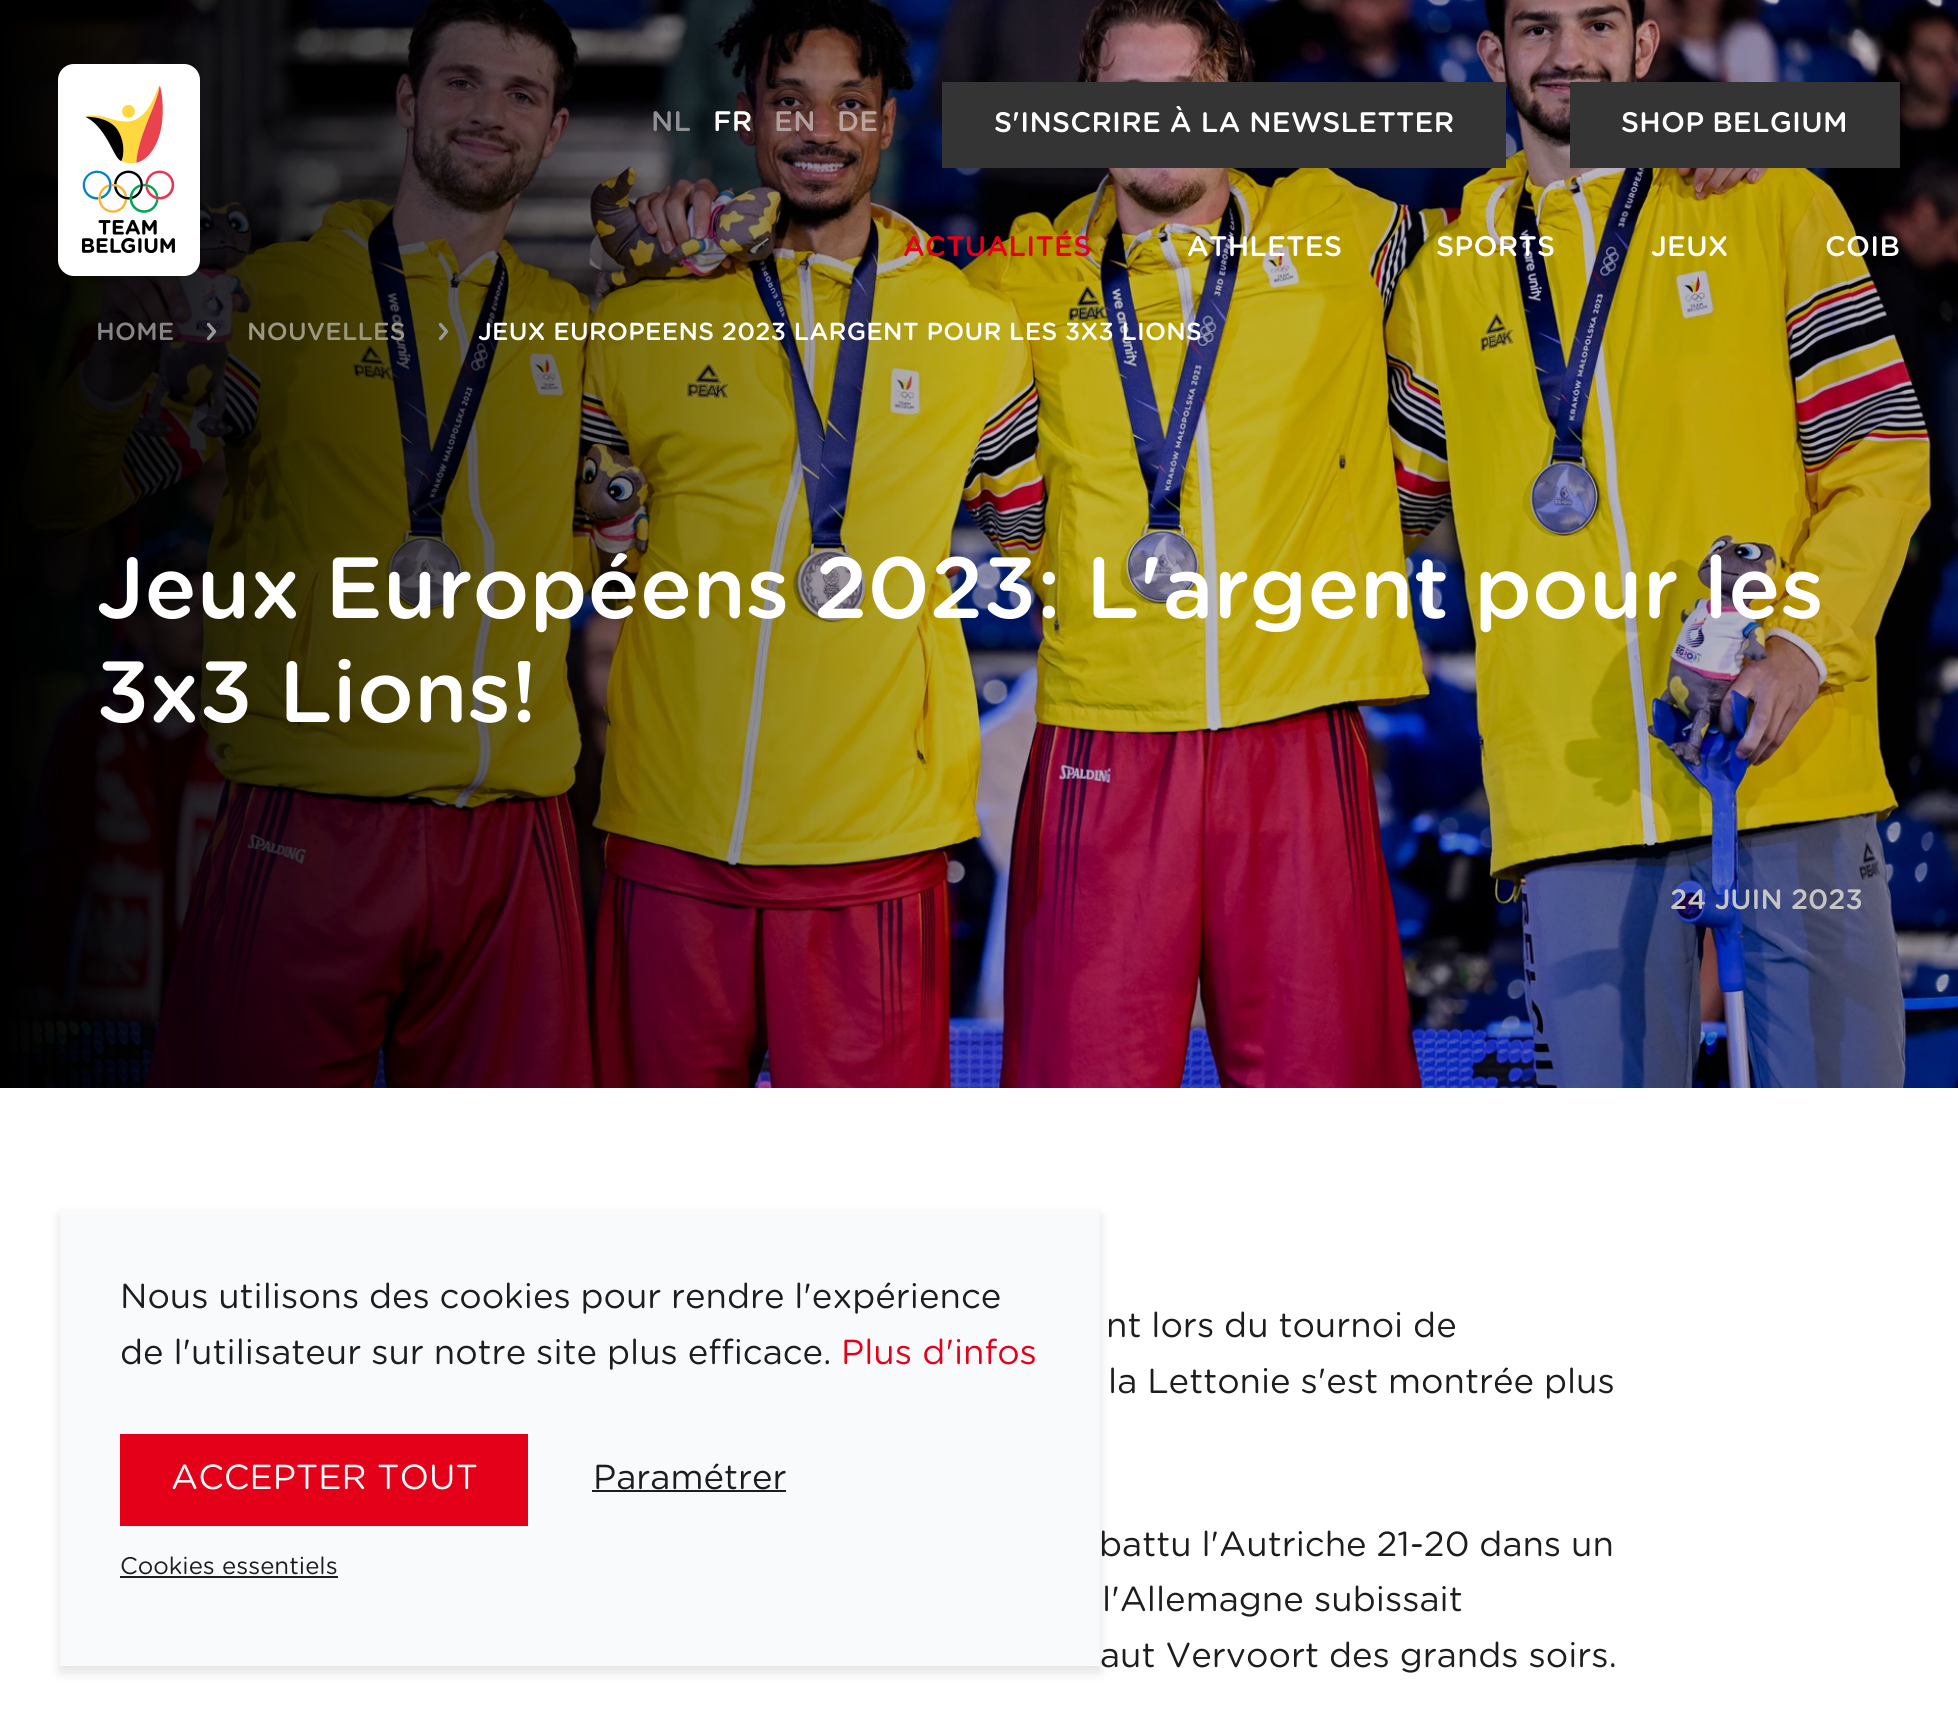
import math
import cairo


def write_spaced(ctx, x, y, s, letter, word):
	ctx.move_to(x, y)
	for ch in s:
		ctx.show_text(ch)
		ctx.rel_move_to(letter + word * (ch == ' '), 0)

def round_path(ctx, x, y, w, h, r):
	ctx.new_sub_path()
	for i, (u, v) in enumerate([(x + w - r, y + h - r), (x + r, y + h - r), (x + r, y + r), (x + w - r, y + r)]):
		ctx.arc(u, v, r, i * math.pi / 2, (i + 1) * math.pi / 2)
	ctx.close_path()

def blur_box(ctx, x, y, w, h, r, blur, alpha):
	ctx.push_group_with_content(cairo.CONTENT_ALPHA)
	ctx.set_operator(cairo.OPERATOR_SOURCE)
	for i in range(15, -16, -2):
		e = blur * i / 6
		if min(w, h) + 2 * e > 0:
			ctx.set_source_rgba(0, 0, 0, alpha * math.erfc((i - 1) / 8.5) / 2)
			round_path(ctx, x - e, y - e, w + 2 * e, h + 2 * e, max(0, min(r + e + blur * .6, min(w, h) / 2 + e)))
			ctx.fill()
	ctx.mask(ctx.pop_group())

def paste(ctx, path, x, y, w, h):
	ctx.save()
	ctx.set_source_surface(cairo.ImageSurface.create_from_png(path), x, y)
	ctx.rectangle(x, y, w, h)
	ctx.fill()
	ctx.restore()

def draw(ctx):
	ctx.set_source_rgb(1, 1, 1)
	ctx.paint()
	paste(ctx, 'media/2.png', 0, 0, 1958, 1088)
	paste(ctx, 'media/1.png', 58, 64, 142, 212)
	ctx.select_font_face('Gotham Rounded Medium')
	ctx.set_font_size(28.25)
	ctx.set_source_rgb(0.557, 0.565, 0.576)
	write_spaced(ctx, 651, 131, 'NL', 0.25, 0)
	ctx.set_source_rgb(1, 1, 1)
	write_spaced(ctx, 713, 131, 'FR', 0.25, 0)
	ctx.set_source_rgb(0.698, 0.62, 0.612)
	write_spaced(ctx, 774, 131, 'EN', 0.25, 0)
	ctx.set_source_rgb(0.729, 0.643, 0.612)
	write_spaced(ctx, 837, 131, 'DE', 0.25, 0)
	ctx.set_source_rgb(0.204, 0.204, 0.204)
	ctx.rectangle(942, 82, 564, 86)
	ctx.fill()
	ctx.set_source_rgb(1, 1, 1)
	write_spaced(ctx, 994, 132, 'S\'INSCRIRE À LA NEWSLETTER', 0.25, 0)
	ctx.set_source_rgb(0.204, 0.204, 0.204)
	ctx.rectangle(1570, 82, 330, 86)
	ctx.fill()
	ctx.set_source_rgb(1, 1, 1)
	write_spaced(ctx, 1621, 132, 'SHOP BELGIUM', 0.25, -1)
	ctx.set_source_rgb(0.898, 0, 0.098)
	write_spaced(ctx, 903, 256, 'ACTUALITÉS', 0.25, 0)
	ctx.set_source_rgb(1, 1, 1)
	for x, y, s in [
		(1187, 256, 'ATHLETES'),
		(1436, 256, 'SPORTS'),
		(1651, 256, 'JEUX'),
		(1825, 256, 'COIB'),
	]:
		write_spaced(ctx, x, y, s, 0.25, 0)
	ctx.set_font_size(24.65)
	ctx.set_source_rgb(0.525, 0.518, 0.522)
	write_spaced(ctx, 96, 340, 'HOME', 0.25, 0)
	ctx.new_path()
	ctx.move_to(208.5, 324.5)
	ctx.line_to(214.5, 331.5)
	ctx.line_to(208.5, 338.5)
	ctx.set_source_rgb(0.6, 0.6, 0.6)
	ctx.set_line_width(3.4)
	ctx.set_line_cap(cairo.LINE_CAP_ROUND)
	ctx.set_line_join(cairo.LINE_JOIN_ROUND)
	ctx.stroke()
	ctx.set_source_rgb(0.604, 0.592, 0.514)
	write_spaced(ctx, 247, 340, 'NOUVELLES', 0.25, 0)
	ctx.new_path()
	ctx.move_to(440.5, 324.5)
	ctx.line_to(446.5, 331.5)
	ctx.line_to(440.5, 338.5)
	ctx.set_source_rgb(0.6, 0.6, 0.6)
	ctx.stroke()
	ctx.set_source_rgb(1, 1, 1)
	write_spaced(ctx, 478, 340, 'JEUX EUROPEENS 2023 LARGENT POUR LES 3X3 LIONS', 0.25, 0)
	ctx.set_font_size(86.6)
	write_spaced(ctx, 96, 618, 'Jeux Européens 2023: L\'argent pour les', 0, -1)
	ctx.move_to(96, 722)
	ctx.show_text('3x3 Lions!')
	ctx.set_font_size(28)
	ctx.set_source_rgb(0.773, 0.773, 0.773)
	ctx.move_to(1670, 909)
	ctx.show_text('24 JUIN 2023')
	ctx.select_font_face('Gotham Rounded')
	ctx.set_font_size(34.7)
	ctx.set_source_rgb(0.114, 0.114, 0.114)
	for x, y, s in [
		(1106, 1337, 'nt lors du tournoi de'),
		(1108, 1393, 'la Lettonie s\'est montrée plus'),
		(1099, 1556, 'battu l\'Autriche 21-20 dans un'),
	]:
		write_spaced(ctx, x, y, s, 0, -0.5)
	ctx.move_to(1102, 1611)
	ctx.show_text('l\'Allemagne subissait')
	write_spaced(ctx, 1100, 1667, 'aut Vervoort des grands soirs.', 0, -0.5)
	ctx.set_source_rgb(0, 0, 0)
	blur_box(ctx, 60, 1216, 1040, 456, 0, 6, 0.12)
	ctx.set_source_rgb(0.969, 0.98, 0.988)
	ctx.rectangle(60, 1210, 1040, 456)
	ctx.fill()
	ctx.set_source_rgb(0.114, 0.114, 0.114)
	write_spaced(ctx, 120, 1308, 'Nous utilisons des cookies pour rendre l\'expérience', 0, -0.75)
	write_spaced(ctx, 120, 1364, 'de l\'utilisateur sur notre site plus efficace.', 0, -0.5)
	ctx.set_source_rgb(0.898, 0, 0.098)
	ctx.move_to(841, 1364)
	ctx.show_text('Plus d\'infos')
	ctx.rectangle(120, 1434, 408, 92)
	ctx.fill()
	ctx.set_source_rgb(1, 1, 1)
	ctx.move_to(171, 1489)
	ctx.show_text('ACCEPTER TOUT')
	ctx.set_source_rgb(0.114, 0.114, 0.114)
	ctx.move_to(593, 1489)
	ctx.show_text('Paramétrer')
	ctx.rectangle(592, 1490, 194, 2)
	ctx.fill()
	ctx.set_font_size(24)
	ctx.move_to(120, 1574)
	ctx.show_text('Cookies essentiels')
	ctx.rectangle(120, 1576, 218, 2)
	ctx.fill()


surface = cairo.ImageSurface(cairo.FORMAT_RGB24, 1958, 1726)
ctx = cairo.Context(surface)
options = cairo.FontOptions()
options.set_hint_metrics(cairo.HINT_METRICS_OFF)
options.set_hint_style(cairo.HINT_STYLE_NONE)
ctx.set_font_options(options)
ctx.set_miter_limit(4)
draw(ctx)
surface.write_to_png('image.png')
